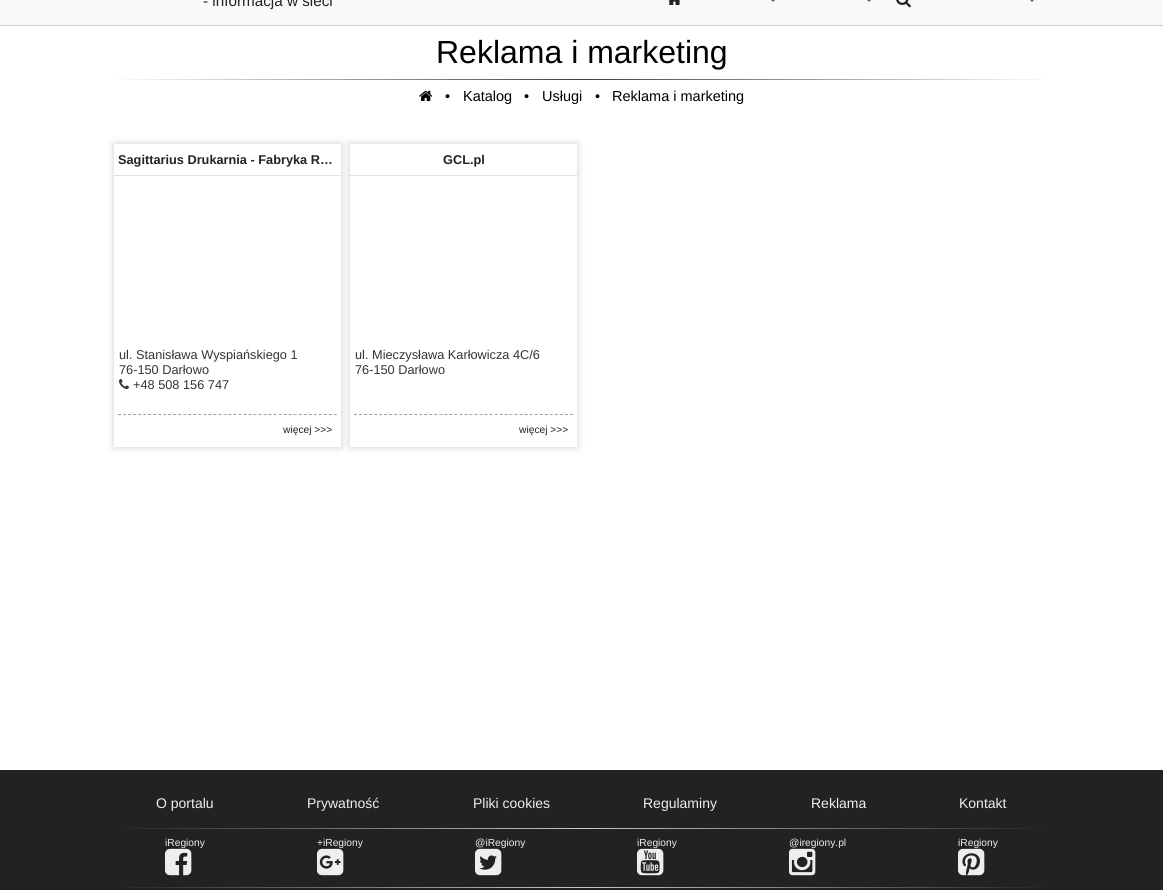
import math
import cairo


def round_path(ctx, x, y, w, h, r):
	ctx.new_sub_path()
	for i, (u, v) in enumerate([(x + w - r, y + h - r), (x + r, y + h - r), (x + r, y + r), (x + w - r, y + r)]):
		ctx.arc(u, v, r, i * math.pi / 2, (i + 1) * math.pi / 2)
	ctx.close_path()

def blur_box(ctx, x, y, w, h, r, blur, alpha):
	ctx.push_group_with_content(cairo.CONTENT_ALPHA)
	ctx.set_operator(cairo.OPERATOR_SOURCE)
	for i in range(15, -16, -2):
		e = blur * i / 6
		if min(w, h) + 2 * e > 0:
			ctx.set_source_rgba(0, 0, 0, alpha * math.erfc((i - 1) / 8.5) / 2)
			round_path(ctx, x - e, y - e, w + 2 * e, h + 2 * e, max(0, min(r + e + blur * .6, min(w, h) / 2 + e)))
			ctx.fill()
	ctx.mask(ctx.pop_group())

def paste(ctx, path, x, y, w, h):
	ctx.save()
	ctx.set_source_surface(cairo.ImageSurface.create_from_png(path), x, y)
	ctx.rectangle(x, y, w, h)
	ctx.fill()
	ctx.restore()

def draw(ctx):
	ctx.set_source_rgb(0.133, 0.133, 0.133)
	ctx.paint()
	ctx.set_source_rgb(0.973, 0.973, 0.973)
	ctx.rectangle(0, 0, 1163, 25)
	ctx.fill()
	ctx.set_source_rgb(0.8, 0.8, 0.8)
	ctx.rectangle(0, 25, 1163, 1)
	ctx.fill()
	ctx.select_font_face('Liberation Sans')
	ctx.set_font_size(15.25)
	ctx.set_source_rgb(0.133, 0.133, 0.133)
	ctx.move_to(203, 6)
	ctx.show_text('- informacja w sieci')
	paste(ctx, 'media/1.png', 667, 0, 14, 5)
	ctx.set_source_rgb(0.4, 0.4, 0.4)
	ctx.new_path()
	ctx.move_to(766, -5)
	ctx.line_to(780, -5)
	ctx.line_to(773, 2)
	ctx.close_path()
	ctx.fill()
	ctx.new_path()
	ctx.move_to(862, -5)
	ctx.line_to(876, -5)
	ctx.line_to(869, 2)
	ctx.close_path()
	ctx.fill()
	paste(ctx, 'media/2.png', 896, 0, 15, 8)
	ctx.new_path()
	ctx.move_to(1025, -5)
	ctx.line_to(1039, -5)
	ctx.line_to(1032, 2)
	ctx.close_path()
	ctx.fill()
	ctx.set_source_rgb(1, 1, 1)
	ctx.rectangle(0, 26, 1163, 744)
	ctx.fill()
	ctx.set_font_size(32)
	ctx.set_source_rgb(0, 0, 0)
	ctx.move_to(436, 63)
	ctx.show_text('Reklama i marketing')
	gradient = cairo.LinearGradient(110, 80, 1054, 79)
	gradient.add_color_stop_rgba(0, 1, 1, 1, 1)
	gradient.add_color_stop_rgba(0.5, 0.251, 0.251, 0.251, 1)
	gradient.add_color_stop_rgba(1, 1, 1, 1, 1)
	ctx.set_source(gradient)
	ctx.rectangle(110, 79, 944, 1)
	ctx.fill()
	paste(ctx, 'media/3.png', 419, 90, 14, 11)
	ctx.set_font_size(14.5)
	ctx.set_source_rgb(0, 0, 0)
	for x, y, s in [
		(445, 101, '•'),
		(463, 101, 'Katalog'),
		(524, 101, '•'),
		(542, 101, 'Usługi'),
		(595, 101, '•'),
		(612, 101, 'Reklama i marketing'),
	]:
		ctx.move_to(x, y)
		ctx.show_text(s)
	ctx.save()
	ctx.set_fill_rule(cairo.FILL_RULE_EVEN_ODD)
	ctx.new_path()
	ctx.move_to(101, 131)
	ctx.line_to(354, 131)
	ctx.line_to(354, 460)
	ctx.line_to(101, 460)
	ctx.close_path()
	ctx.move_to(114, 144)
	ctx.line_to(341, 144)
	ctx.line_to(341, 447)
	ctx.line_to(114, 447)
	ctx.close_path()
	ctx.clip()
	ctx.set_source_rgb(0, 0, 0)
	blur_box(ctx, 114, 144, 227, 303, 0, 4, 0.2)
	ctx.restore()
	ctx.set_source_rgb(0.922, 0.875, 0.816)
	ctx.rectangle(114, 175, 227, 1)
	ctx.fill()
	ctx.select_font_face('Liberation Sans', cairo.FONT_SLANT_NORMAL, cairo.FONT_WEIGHT_BOLD)
	ctx.set_font_size(12.75)
	ctx.set_source_rgb(0.133, 0.133, 0.133)
	ctx.move_to(118, 164)
	ctx.show_text('Sagittarius Drukarnia - Fabryka R…')
	ctx.select_font_face('Liberation Sans')
	ctx.set_source_rgb(0.2, 0.2, 0.2)
	ctx.move_to(119, 359)
	ctx.show_text('ul. Stanisława Wyspiańskiego 1')
	ctx.move_to(119, 374)
	ctx.show_text('76-150 Darłowo')
	paste(ctx, 'media/4.png', 119, 379, 10, 10)
	ctx.move_to(133, 389)
	ctx.show_text('+48 508 156 747')
	ctx.new_path()
	ctx.move_to(118, 414.5)
	ctx.line_to(337, 414.5)
	ctx.set_source_rgb(0.671, 0.624, 0.565)
	ctx.set_line_width(1)
	ctx.set_dash([3, 2.02])
	ctx.stroke()
	ctx.set_font_size(10.25)
	ctx.set_source_rgb(0.133, 0.133, 0.133)
	ctx.move_to(283, 433)
	ctx.show_text('więcej >>>')
	ctx.save()
	ctx.set_fill_rule(cairo.FILL_RULE_EVEN_ODD)
	ctx.new_path()
	ctx.move_to(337, 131)
	ctx.line_to(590, 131)
	ctx.line_to(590, 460)
	ctx.line_to(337, 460)
	ctx.close_path()
	ctx.move_to(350, 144)
	ctx.line_to(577, 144)
	ctx.line_to(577, 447)
	ctx.line_to(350, 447)
	ctx.close_path()
	ctx.clip()
	ctx.set_source_rgb(0, 0, 0)
	blur_box(ctx, 350, 144, 227, 303, 0, 4, 0.2)
	ctx.restore()
	ctx.set_source_rgb(0.922, 0.875, 0.816)
	ctx.rectangle(350, 175, 227, 1)
	ctx.fill()
	ctx.select_font_face('Liberation Sans', cairo.FONT_SLANT_NORMAL, cairo.FONT_WEIGHT_BOLD)
	ctx.set_font_size(12.75)
	ctx.set_source_rgb(0.133, 0.133, 0.133)
	ctx.move_to(443, 164)
	ctx.show_text('GCL.pl')
	ctx.select_font_face('Liberation Sans')
	ctx.set_source_rgb(0.2, 0.2, 0.2)
	ctx.move_to(355, 359)
	ctx.show_text('ul. Mieczysława Karłowicza 4C/6')
	ctx.move_to(355, 374)
	ctx.show_text('76-150 Darłowo')
	ctx.new_path()
	ctx.move_to(354, 414.5)
	ctx.line_to(573, 414.5)
	ctx.set_source_rgb(0.671, 0.624, 0.565)
	ctx.stroke()
	ctx.set_font_size(10.25)
	ctx.set_source_rgb(0.133, 0.133, 0.133)
	ctx.move_to(519, 433)
	ctx.show_text('więcej >>>')
	ctx.set_font_size(14)
	ctx.set_source_rgb(0.933, 0.933, 0.933)
	for x, y, s in [
		(156, 808, 'O portalu'),
		(307, 808, 'Prywatność'),
		(473, 808, 'Pliki cookies'),
		(643, 808, 'Regulaminy'),
		(811, 808, 'Reklama'),
		(959, 808, 'Kontakt'),
	]:
		ctx.move_to(x, y)
		ctx.show_text(s)
	gradient = cairo.LinearGradient(110, 829, 1054, 829)
	gradient.add_color_stop_rgba(0, 0.133, 0.133, 0.133, 1)
	gradient.add_color_stop_rgba(0.5, 0.784, 0.784, 0.784, 1)
	gradient.add_color_stop_rgba(1, 0.133, 0.133, 0.133, 1)
	ctx.set_source(gradient)
	ctx.rectangle(110, 828, 944, 1)
	ctx.fill()
	ctx.set_font_size(10.25)
	ctx.set_source_rgb(0.933, 0.933, 0.933)
	ctx.move_to(165, 846)
	ctx.show_text('iRegiony')
	paste(ctx, 'media/5.png', 165, 848, 27, 28)
	ctx.move_to(317, 846)
	ctx.show_text('+iRegiony')
	paste(ctx, 'media/6.png', 317, 848, 27, 28)
	ctx.move_to(475, 846)
	ctx.show_text('@iRegiony')
	paste(ctx, 'media/7.png', 475, 848, 27, 28)
	ctx.move_to(637, 846)
	ctx.show_text('iRegiony')
	paste(ctx, 'media/8.png', 637, 848, 27, 28)
	ctx.move_to(789, 846)
	ctx.show_text('@iregiony.pl')
	paste(ctx, 'media/9.png', 789, 848, 27, 28)
	ctx.move_to(958, 846)
	ctx.show_text('iRegiony')
	paste(ctx, 'media/10.png', 958, 848, 27, 28)
	gradient = cairo.LinearGradient(110, 888, 1054, 888)
	gradient.add_color_stop_rgba(0, 0.133, 0.133, 0.133, 1)
	gradient.add_color_stop_rgba(0.5, 0.784, 0.784, 0.784, 1)
	gradient.add_color_stop_rgba(1, 0.133, 0.133, 0.133, 1)
	ctx.set_source(gradient)
	ctx.rectangle(110, 887, 944, 1)
	ctx.fill()


surface = cairo.ImageSurface(cairo.FORMAT_RGB24, 1163, 890)
ctx = cairo.Context(surface)
options = cairo.FontOptions()
options.set_hint_metrics(cairo.HINT_METRICS_OFF)
options.set_hint_style(cairo.HINT_STYLE_NONE)
ctx.set_font_options(options)
ctx.set_miter_limit(4)
draw(ctx)
surface.write_to_png('image.png')
